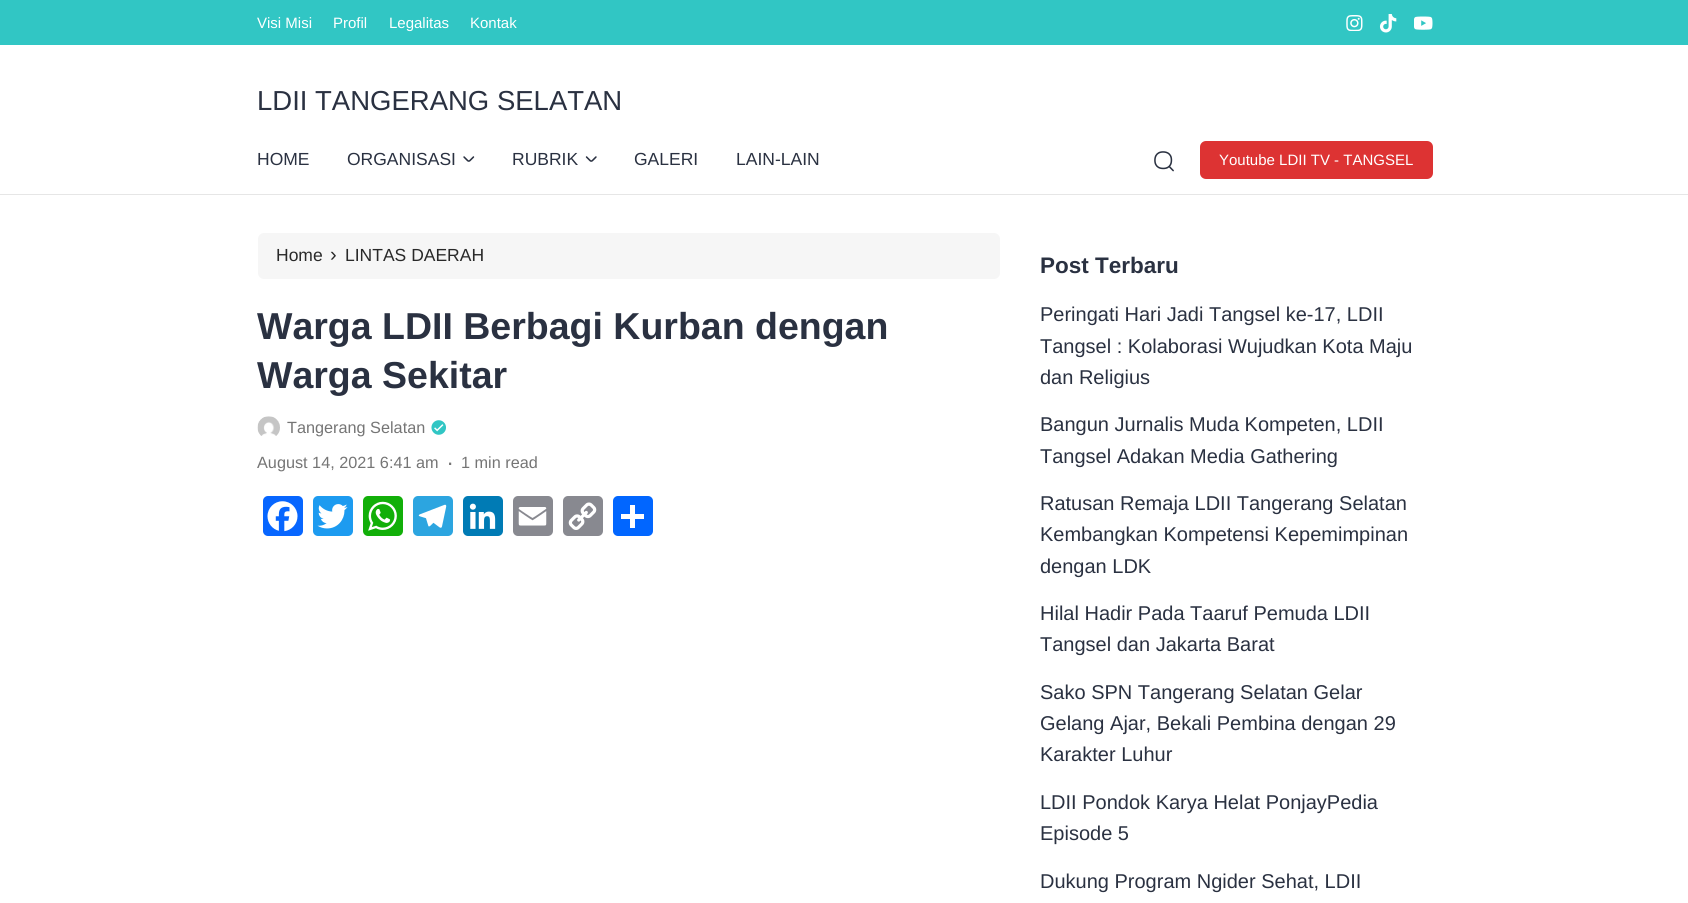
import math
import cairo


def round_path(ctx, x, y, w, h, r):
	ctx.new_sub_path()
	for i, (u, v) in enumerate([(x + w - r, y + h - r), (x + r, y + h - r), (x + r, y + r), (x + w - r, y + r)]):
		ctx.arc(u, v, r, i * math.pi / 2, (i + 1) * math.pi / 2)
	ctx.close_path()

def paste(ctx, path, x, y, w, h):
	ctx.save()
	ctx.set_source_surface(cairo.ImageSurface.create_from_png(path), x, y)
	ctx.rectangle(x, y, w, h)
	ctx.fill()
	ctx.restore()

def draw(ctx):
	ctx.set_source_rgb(1, 1, 1)
	ctx.paint()
	ctx.set_source_rgb(0.192, 0.776, 0.769)
	ctx.rectangle(0, 0, 1688, 45)
	ctx.fill()
	ctx.select_font_face('Liberation Sans')
	ctx.set_font_size(15)
	ctx.set_source_rgb(1, 1, 1)
	for x, y, s in [
		(257, 28, 'Visi Misi'),
		(333, 28, 'Profil'),
		(389, 28, 'Legalitas'),
		(470, 28, 'Kontak'),
	]:
		ctx.move_to(x, y)
		ctx.show_text(s)
	paste(ctx, 'media/1.png', 1346, 15, 17, 16)
	paste(ctx, 'media/2.png', 1379, 14, 18, 19)
	paste(ctx, 'media/3.png', 1414, 16, 19, 14)
	ctx.set_font_size(27.5)
	ctx.set_source_rgb(0.165, 0.192, 0.255)
	ctx.move_to(257, 110)
	ctx.show_text('LDII TANGERANG SELATAN')
	ctx.set_font_size(17.5)
	ctx.move_to(257, 165)
	ctx.show_text('HOME')
	ctx.move_to(347, 165)
	ctx.show_text('ORGANISASI')
	paste(ctx, 'media/4.png', 463, 156, 12, 6)
	ctx.move_to(512, 165)
	ctx.show_text('RUBRIK')
	paste(ctx, 'media/5.png', 585, 156, 12, 6)
	ctx.move_to(634, 165)
	ctx.show_text('GALERI')
	ctx.move_to(736, 165)
	ctx.show_text('LAIN-LAIN')
	paste(ctx, 'media/6.png', 1154, 151, 20, 21)
	ctx.set_source_rgb(0.867, 0.2, 0.2)
	round_path(ctx, 1200, 141, 233, 38, 6)
	ctx.fill()
	ctx.set_font_size(15)
	ctx.set_source_rgb(1, 1, 1)
	ctx.move_to(1219, 165)
	ctx.show_text('Youtube LDII TV - TANGSEL')
	ctx.set_source_rgb(0.902, 0.902, 0.902)
	ctx.rectangle(0, 194, 1688, 1)
	ctx.fill()
	ctx.set_source_rgb(0.961, 0.961, 0.961)
	round_path(ctx, 258, 233, 742, 46, 6)
	ctx.fill()
	ctx.set_font_size(17.5)
	ctx.set_source_rgb(0.161, 0.161, 0.161)
	ctx.move_to(276, 261)
	ctx.show_text('Home')
	ctx.set_font_size(20)
	ctx.move_to(330, 261)
	ctx.show_text('›')
	ctx.set_font_size(17.5)
	ctx.move_to(345, 261)
	ctx.show_text('LINTAS DAERAH')
	ctx.select_font_face('Liberation Sans', cairo.FONT_SLANT_NORMAL, cairo.FONT_WEIGHT_BOLD)
	ctx.set_font_size(37.5)
	ctx.set_source_rgb(0.165, 0.192, 0.255)
	ctx.move_to(257, 339)
	ctx.show_text('Warga LDII Berbagi Kurban dengan')
	ctx.move_to(257, 388)
	ctx.show_text('Warga Sekitar')
	paste(ctx, 'media/7.png', 257, 416, 23, 20)
	ctx.select_font_face('Liberation Sans')
	ctx.set_font_size(16.25)
	ctx.set_source_rgb(0.459, 0.459, 0.459)
	ctx.move_to(287, 433)
	ctx.show_text('Tangerang Selatan')
	paste(ctx, 'media/8.png', 431, 420, 15, 15)
	ctx.move_to(257, 468)
	ctx.show_text('August 14, 2021 6:41 am')
	ctx.set_font_size(22.5)
	ctx.move_to(447, 465)
	ctx.show_text('.')
	ctx.set_font_size(16.25)
	ctx.move_to(461, 468)
	ctx.show_text('1 min read')
	ctx.set_source_rgb(0.031, 0.4, 1)
	round_path(ctx, 263, 496, 40, 40, 5)
	ctx.fill()
	paste(ctx, 'media/9.png', 267, 501, 31, 31)
	ctx.set_source_rgb(0.114, 0.608, 0.941)
	round_path(ctx, 313, 496, 40, 40, 5)
	ctx.fill()
	paste(ctx, 'media/10.png', 317, 504, 31, 25)
	ctx.set_source_rgb(0.071, 0.686, 0.039)
	round_path(ctx, 363, 496, 40, 40, 5)
	ctx.fill()
	paste(ctx, 'media/11.png', 368, 501, 29, 30)
	ctx.set_source_rgb(0.173, 0.647, 0.878)
	round_path(ctx, 413, 496, 40, 40, 5)
	ctx.fill()
	paste(ctx, 'media/12.png', 418, 504, 29, 24)
	ctx.set_source_rgb(0, 0.482, 0.71)
	round_path(ctx, 463, 496, 40, 40, 5)
	ctx.fill()
	paste(ctx, 'media/13.png', 469, 503, 27, 26)
	ctx.set_source_rgb(0.533, 0.537, 0.565)
	round_path(ctx, 513, 496, 40, 40, 5)
	ctx.fill()
	paste(ctx, 'media/14.png', 518, 507, 29, 19)
	round_path(ctx, 563, 496, 40, 40, 5)
	ctx.fill()
	paste(ctx, 'media/15.png', 568, 502, 29, 28)
	ctx.set_source_rgb(0.004, 0.4, 1)
	round_path(ctx, 613, 496, 40, 40, 5)
	ctx.fill()
	ctx.set_source_rgb(1, 1, 1)
	ctx.rectangle(630, 505, 5, 23)
	ctx.fill()
	ctx.rectangle(621, 514, 23, 5)
	ctx.fill()
	ctx.select_font_face('Liberation Sans', cairo.FONT_SLANT_NORMAL, cairo.FONT_WEIGHT_BOLD)
	ctx.set_font_size(22.5)
	ctx.set_source_rgb(0.165, 0.192, 0.255)
	ctx.move_to(1040, 273)
	ctx.show_text('Post Terbaru')
	ctx.select_font_face('Liberation Sans')
	ctx.set_font_size(20)
	for x, y, s in [
		(1040, 321, 'Peringati Hari Jadi Tangsel ke-17, LDII'),
		(1040, 353, 'Tangsel : Kolaborasi Wujudkan Kota Maju'),
		(1040, 384, 'dan Religius'),
		(1040, 431, 'Bangun Jurnalis Muda Kompeten, LDII'),
		(1040, 463, 'Tangsel Adakan Media Gathering'),
		(1040, 510, 'Ratusan Remaja LDII Tangerang Selatan'),
		(1040, 541, 'Kembangkan Kompetensi Kepemimpinan'),
		(1040, 573, 'dengan LDK'),
		(1040, 620, 'Hilal Hadir Pada Taaruf Pemuda LDII'),
		(1040, 651, 'Tangsel dan Jakarta Barat'),
		(1040, 699, 'Sako SPN Tangerang Selatan Gelar'),
		(1040, 730, 'Gelang Ajar, Bekali Pembina dengan 29'),
		(1040, 761, 'Karakter Luhur'),
		(1040, 809, 'LDII Pondok Karya Helat PonjayPedia'),
		(1040, 840, 'Episode 5'),
		(1040, 888, 'Dukung Program Ngider Sehat, LDII'),
	]:
		ctx.move_to(x, y)
		ctx.show_text(s)


surface = cairo.ImageSurface(cairo.FORMAT_RGB24, 1688, 903)
ctx = cairo.Context(surface)
options = cairo.FontOptions()
options.set_hint_metrics(cairo.HINT_METRICS_OFF)
options.set_hint_style(cairo.HINT_STYLE_NONE)
ctx.set_font_options(options)
ctx.set_miter_limit(4)
draw(ctx)
surface.write_to_png('image.png')
